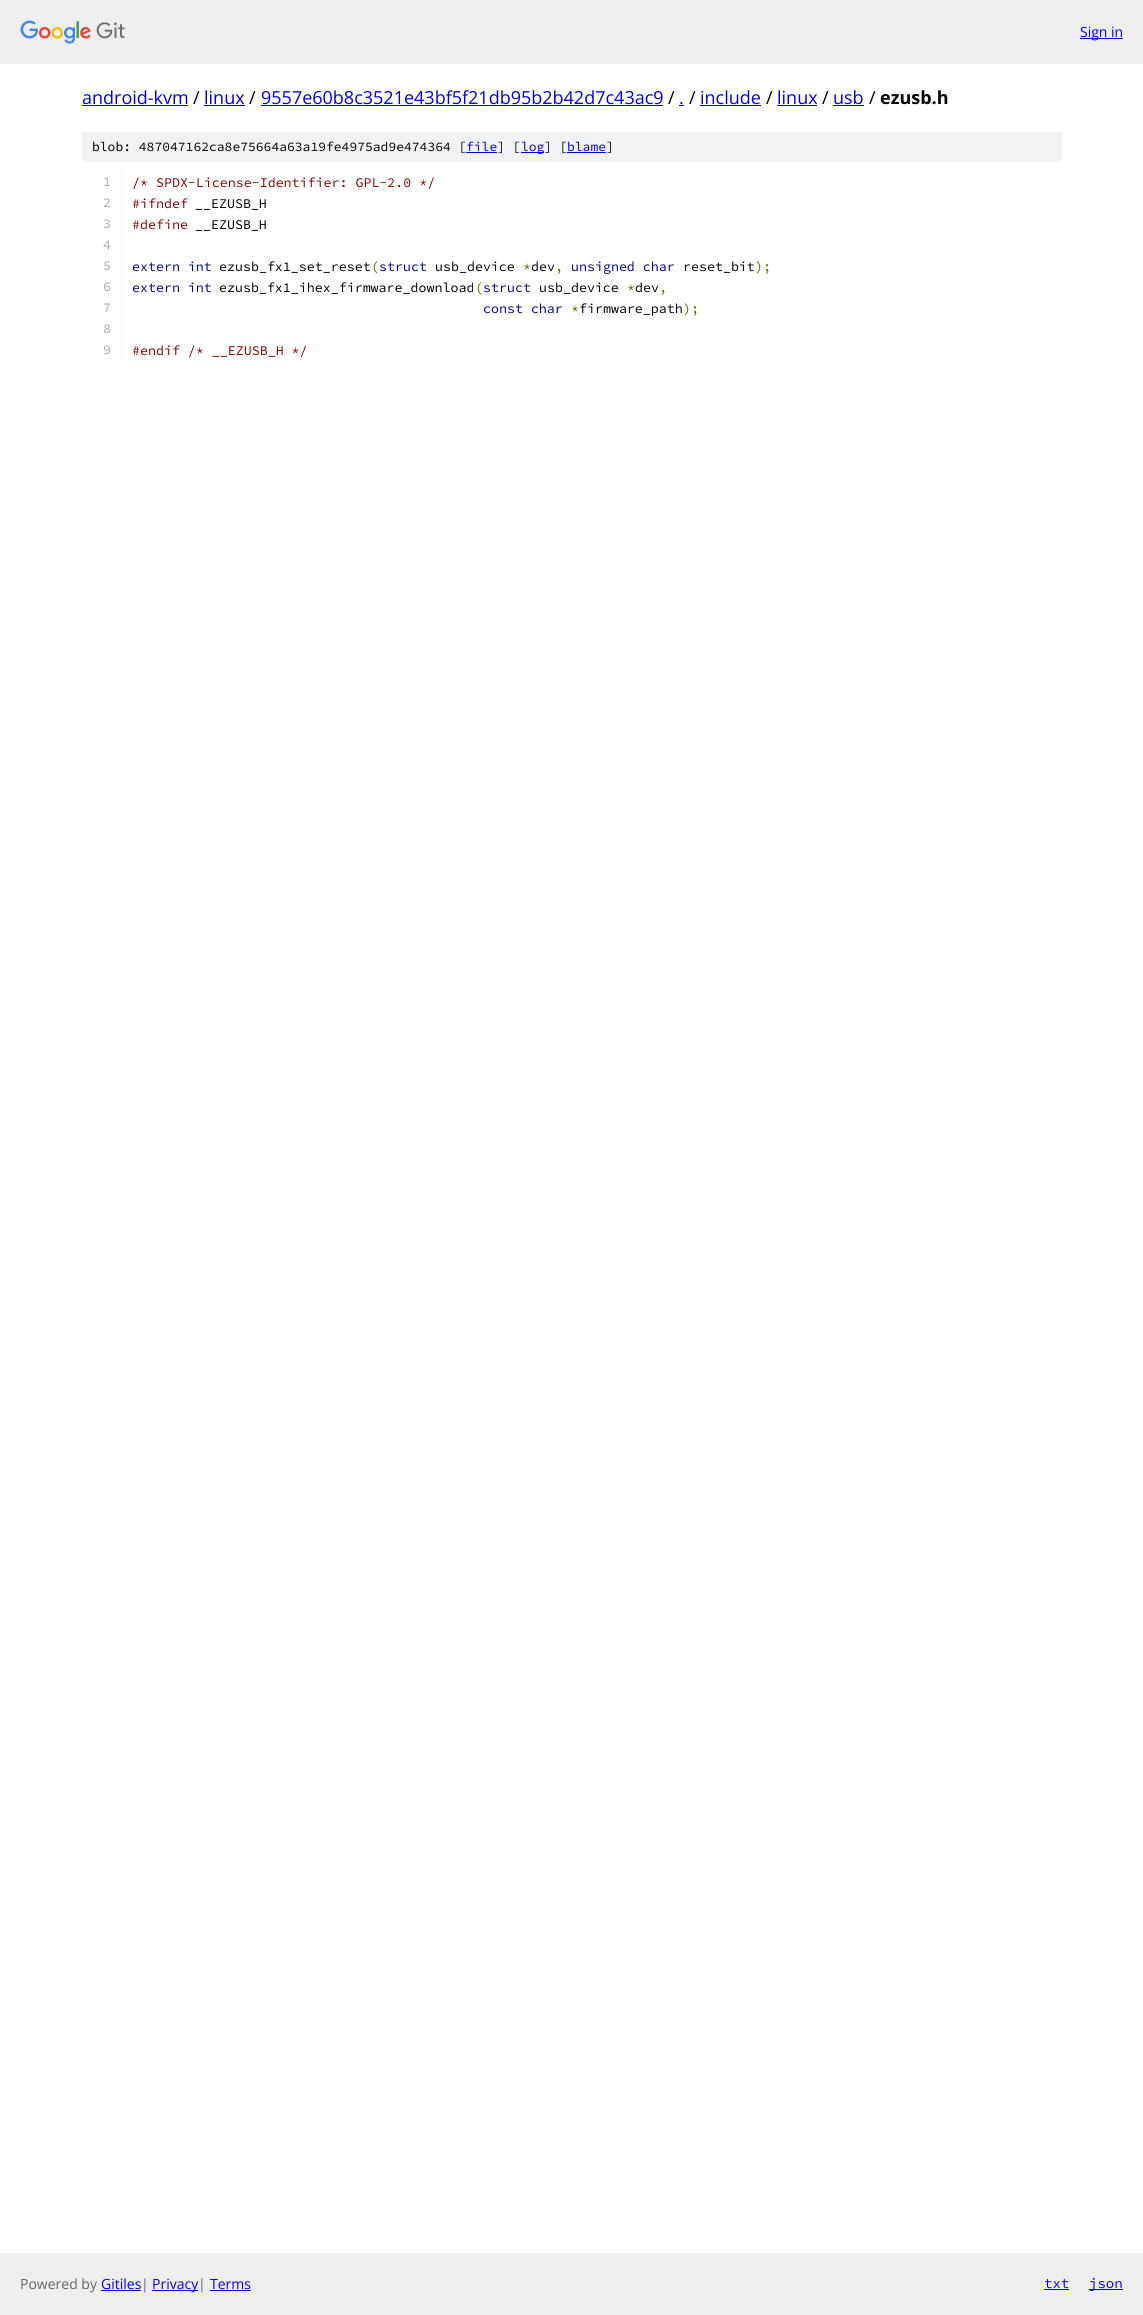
import math
import cairo


def paste(ctx, path, x, y, w, h):
	ctx.save()
	ctx.set_source_surface(cairo.ImageSurface.create_from_png(path), x, y)
	ctx.rectangle(x, y, w, h)
	ctx.fill()
	ctx.restore()

def draw(ctx):
	ctx.set_source_rgb(1, 1, 1)
	ctx.paint()
	ctx.set_source_rgb(0.933, 0.933, 0.933)
	ctx.rectangle(0, 0, 1143, 64)
	ctx.fill()
	paste(ctx, 'media/1.png', 20, 20, 105, 24)
	ctx.set_source_rgb(0, 0, 0.933)
	ctx.rectangle(1080, 38, 43, 1)
	ctx.fill()
	ctx.select_font_face('Open Sans')
	ctx.set_font_size(14)
	ctx.move_to(1080, 37)
	ctx.show_text('Sign in')
	ctx.set_font_size(18)
	ctx.move_to(82, 104)
	ctx.show_text('android-kvm')
	ctx.rectangle(82, 105, 106, 1)
	ctx.fill()
	ctx.set_source_rgb(0, 0, 0)
	ctx.move_to(193, 104)
	ctx.show_text('/')
	ctx.set_source_rgb(0, 0, 0.933)
	ctx.move_to(204, 104)
	ctx.show_text('linux')
	ctx.rectangle(204, 105, 41, 1)
	ctx.fill()
	ctx.set_source_rgb(0, 0, 0)
	ctx.move_to(249, 104)
	ctx.show_text('/')
	ctx.set_source_rgb(0, 0, 0.933)
	ctx.move_to(261, 104)
	ctx.show_text('9557e60b8c3521e43bf5f21db95b2b42d7c43ac9')
	ctx.rectangle(261, 105, 402, 1)
	ctx.fill()
	ctx.set_source_rgb(0, 0, 0)
	ctx.move_to(668, 104)
	ctx.show_text('/')
	ctx.set_source_rgb(0, 0, 0.933)
	ctx.move_to(679, 104)
	ctx.show_text('.')
	ctx.rectangle(679, 105, 5, 1)
	ctx.fill()
	ctx.set_source_rgb(0, 0, 0)
	ctx.move_to(689, 104)
	ctx.show_text('/')
	ctx.set_source_rgb(0, 0, 0.933)
	ctx.move_to(700, 104)
	ctx.show_text('include')
	ctx.rectangle(700, 105, 61, 1)
	ctx.fill()
	ctx.set_source_rgb(0, 0, 0)
	ctx.move_to(766, 104)
	ctx.show_text('/')
	ctx.set_source_rgb(0, 0, 0.933)
	ctx.move_to(777, 104)
	ctx.show_text('linux')
	ctx.rectangle(777, 105, 40, 1)
	ctx.fill()
	ctx.set_source_rgb(0, 0, 0)
	ctx.move_to(822, 104)
	ctx.show_text('/')
	ctx.set_source_rgb(0, 0, 0.933)
	ctx.move_to(833, 104)
	ctx.show_text('usb')
	ctx.rectangle(833, 105, 31, 1)
	ctx.fill()
	ctx.set_source_rgb(0, 0, 0)
	ctx.move_to(869, 104)
	ctx.show_text('/')
	ctx.select_font_face('Open Sans', cairo.FONT_SLANT_NORMAL, cairo.FONT_WEIGHT_BOLD)
	ctx.move_to(880, 104)
	ctx.show_text('ezusb.h')
	ctx.set_source_rgb(0.945, 0.949, 0.953)
	ctx.rectangle(82, 132, 980, 30)
	ctx.fill()
	ctx.select_font_face('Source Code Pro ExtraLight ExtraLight')
	ctx.set_font_size(13)
	ctx.set_source_rgb(0, 0, 0)
	ctx.move_to(92, 151)
	ctx.show_text('blob: 487047162ca8e75664a63a19fe4975ad9e474364 [')
	ctx.set_source_rgb(0, 0, 0.933)
	ctx.move_to(466, 151)
	ctx.show_text('file')
	ctx.rectangle(466, 152, 31, 1)
	ctx.fill()
	ctx.set_source_rgb(0, 0, 0)
	ctx.move_to(497, 151)
	ctx.show_text('] [')
	ctx.set_source_rgb(0, 0, 0.933)
	ctx.rectangle(521, 152, 23, 1)
	ctx.fill()
	ctx.move_to(521, 151)
	ctx.show_text('log')
	ctx.set_source_rgb(0, 0, 0)
	ctx.move_to(544, 151)
	ctx.show_text('] [')
	ctx.set_source_rgb(0, 0, 0.933)
	ctx.move_to(567, 151)
	ctx.show_text('blame')
	ctx.rectangle(567, 152, 39, 1)
	ctx.fill()
	ctx.set_source_rgb(0, 0, 0)
	ctx.move_to(606, 151)
	ctx.show_text(']')
	ctx.set_source_rgb(0.945, 0.949, 0.953)
	ctx.rectangle(121, 172, 1, 189)
	ctx.fill()
	ctx.set_font_size(13.3)
	ctx.set_source_rgb(0.667, 0.667, 0.667)
	ctx.move_to(103, 186)
	ctx.show_text('1')
	ctx.set_source_rgb(0.533, 0, 0)
	ctx.move_to(132, 187)
	ctx.show_text('/* SPDX-License-Identifier: GPL-2.0 */')
	ctx.set_source_rgb(0.667, 0.667, 0.667)
	ctx.move_to(103, 207)
	ctx.show_text('2')
	ctx.set_source_rgb(0.533, 0, 0)
	ctx.move_to(132, 208)
	ctx.show_text('#ifndef')
	ctx.set_source_rgb(0, 0, 0)
	ctx.move_to(195, 208)
	ctx.show_text('__EZUSB_H')
	ctx.set_source_rgb(0.667, 0.667, 0.667)
	ctx.move_to(103, 228)
	ctx.show_text('3')
	ctx.set_source_rgb(0.533, 0, 0)
	ctx.move_to(132, 229)
	ctx.show_text('#define')
	ctx.set_source_rgb(0, 0, 0)
	ctx.move_to(195, 229)
	ctx.show_text('__EZUSB_H')
	ctx.set_source_rgb(0.667, 0.667, 0.667)
	ctx.move_to(103, 249)
	ctx.show_text('4')
	ctx.move_to(103, 270)
	ctx.show_text('5')
	ctx.set_source_rgb(0, 0, 0.533)
	ctx.move_to(132, 271)
	ctx.show_text('extern int')
	ctx.set_source_rgb(0, 0, 0)
	ctx.move_to(219, 271)
	ctx.show_text('ezusb_fx1_set_reset')
	ctx.set_source_rgb(0.4, 0.4, 0)
	ctx.move_to(371, 271)
	ctx.show_text('(')
	ctx.set_source_rgb(0, 0, 0.533)
	ctx.move_to(379, 271)
	ctx.show_text('struct')
	ctx.set_source_rgb(0, 0, 0)
	ctx.move_to(435, 271)
	ctx.show_text('usb_device')
	ctx.set_source_rgb(0.4, 0.4, 0)
	ctx.move_to(523, 271)
	ctx.show_text('*')
	ctx.set_source_rgb(0, 0, 0)
	ctx.move_to(531, 271)
	ctx.show_text('dev')
	ctx.set_source_rgb(0, 0, 0.533)
	ctx.move_to(571, 271)
	ctx.show_text('unsigned char')
	ctx.set_source_rgb(0, 0, 0)
	ctx.move_to(683, 271)
	ctx.show_text('reset_bit')
	ctx.set_source_rgb(0.4, 0.4, 0)
	ctx.move_to(755, 271)
	ctx.show_text(');')
	ctx.move_to(555, 271)
	ctx.show_text(',')
	ctx.set_source_rgb(0.667, 0.667, 0.667)
	ctx.move_to(103, 291)
	ctx.show_text('6')
	ctx.set_source_rgb(0, 0, 0.533)
	ctx.move_to(132, 292)
	ctx.show_text('extern int')
	ctx.set_source_rgb(0, 0, 0)
	ctx.move_to(219, 292)
	ctx.show_text('ezusb_fx1_ihex_firmware_download')
	ctx.set_source_rgb(0.4, 0.4, 0)
	ctx.move_to(475, 292)
	ctx.show_text('(')
	ctx.set_source_rgb(0, 0, 0.533)
	ctx.move_to(483, 292)
	ctx.show_text('struct')
	ctx.set_source_rgb(0, 0, 0)
	ctx.move_to(539, 292)
	ctx.show_text('usb_device')
	ctx.set_source_rgb(0.4, 0.4, 0)
	ctx.move_to(627, 292)
	ctx.show_text('*')
	ctx.set_source_rgb(0, 0, 0)
	ctx.move_to(635, 292)
	ctx.show_text('dev')
	ctx.set_source_rgb(0.4, 0.4, 0)
	ctx.move_to(659, 292)
	ctx.show_text(',')
	ctx.set_source_rgb(0.667, 0.667, 0.667)
	ctx.move_to(103, 312)
	ctx.show_text('7')
	ctx.set_source_rgb(0, 0, 0.533)
	ctx.move_to(483, 313)
	ctx.show_text('const char')
	ctx.set_source_rgb(0.4, 0.4, 0)
	ctx.move_to(571, 313)
	ctx.show_text('*')
	ctx.set_source_rgb(0, 0, 0)
	ctx.move_to(579, 313)
	ctx.show_text('firmware_path')
	ctx.set_source_rgb(0.4, 0.4, 0)
	ctx.move_to(683, 313)
	ctx.show_text(');')
	ctx.set_source_rgb(0.667, 0.667, 0.667)
	ctx.move_to(103, 333)
	ctx.show_text('8')
	ctx.move_to(103, 354)
	ctx.show_text('9')
	ctx.set_source_rgb(0.533, 0, 0)
	ctx.move_to(132, 355)
	ctx.show_text('#endif /* __EZUSB_H */')
	ctx.set_source_rgb(0.933, 0.933, 0.933)
	ctx.rectangle(0, 2253, 1143, 62)
	ctx.fill()
	ctx.select_font_face('Open Sans')
	ctx.set_font_size(14)
	ctx.set_source_rgb(0.4, 0.4, 0.4)
	ctx.move_to(20, 2289)
	ctx.show_text('Powered by')
	ctx.set_source_rgb(0, 0, 0.933)
	ctx.move_to(101, 2289)
	ctx.show_text('Gitiles')
	ctx.rectangle(101, 2290, 40, 1)
	ctx.fill()
	ctx.set_source_rgb(0.4, 0.4, 0.4)
	ctx.move_to(141, 2289)
	ctx.show_text('|')
	ctx.set_source_rgb(0, 0, 0.933)
	ctx.rectangle(152, 2290, 46, 1)
	ctx.fill()
	ctx.move_to(152, 2289)
	ctx.show_text('Privacy')
	ctx.set_source_rgb(0.4, 0.4, 0.4)
	ctx.move_to(198, 2289)
	ctx.show_text('|')
	ctx.set_source_rgb(0, 0, 0.933)
	ctx.move_to(210, 2289)
	ctx.show_text('Terms')
	ctx.rectangle(210, 2290, 41, 1)
	ctx.fill()
	ctx.select_font_face('Source Code Pro ExtraLight ExtraLight')
	ctx.move_to(1044, 2288)
	ctx.show_text('txt')
	ctx.rectangle(1044, 2289, 25, 1)
	ctx.fill()
	ctx.rectangle(1089, 2289, 34, 1)
	ctx.fill()
	ctx.move_to(1089, 2288)
	ctx.show_text('json')


surface = cairo.ImageSurface(cairo.FORMAT_RGB24, 1143, 2315)
ctx = cairo.Context(surface)
options = cairo.FontOptions()
options.set_hint_metrics(cairo.HINT_METRICS_OFF)
options.set_hint_style(cairo.HINT_STYLE_NONE)
ctx.set_font_options(options)
ctx.set_miter_limit(4)
draw(ctx)
surface.write_to_png('image.png')
